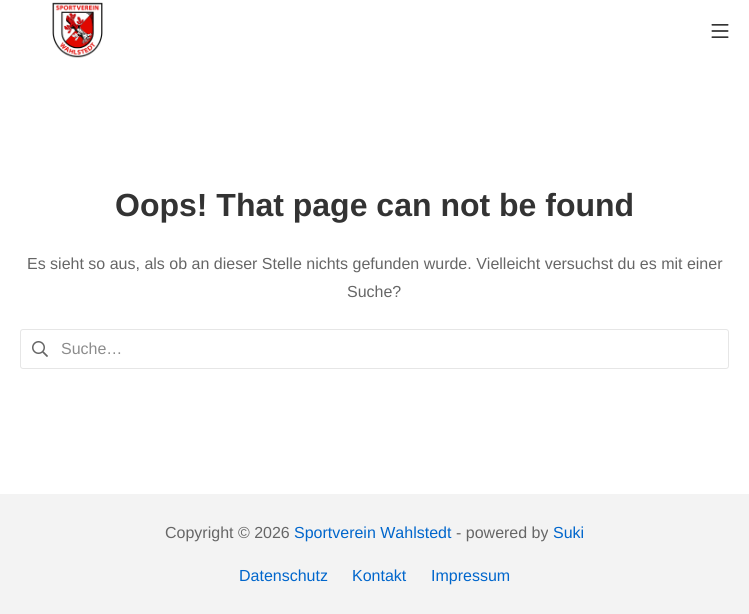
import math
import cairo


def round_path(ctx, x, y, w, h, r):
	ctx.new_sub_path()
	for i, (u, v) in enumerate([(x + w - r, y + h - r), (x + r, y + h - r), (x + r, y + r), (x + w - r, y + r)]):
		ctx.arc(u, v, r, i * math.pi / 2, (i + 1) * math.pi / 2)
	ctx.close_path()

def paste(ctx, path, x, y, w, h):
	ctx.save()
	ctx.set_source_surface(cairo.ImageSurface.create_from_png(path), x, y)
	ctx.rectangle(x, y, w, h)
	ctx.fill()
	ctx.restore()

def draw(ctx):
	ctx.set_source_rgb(1, 1, 1)
	ctx.paint()
	paste(ctx, 'media/1.png', 52, 2, 51, 56)
	paste(ctx, 'media/2.png', 711, 24, 18, 14)
	ctx.select_font_face('Liberation Sans', cairo.FONT_SLANT_NORMAL, cairo.FONT_WEIGHT_BOLD)
	ctx.set_font_size(32)
	ctx.set_source_rgb(0.2, 0.2, 0.2)
	ctx.move_to(115, 216)
	ctx.show_text('Oops! That page can not be found')
	ctx.select_font_face('Liberation Sans')
	ctx.set_font_size(16)
	ctx.set_source_rgb(0.4, 0.4, 0.4)
	ctx.move_to(27, 269)
	ctx.show_text('Es sieht so aus, als ob an dieser Stelle nichts gefunden wurde. Vielleicht versuchst du es mit einer')
	ctx.move_to(347, 297)
	ctx.show_text('Suche?')
	round_path(ctx, 20.5, 329.5, 708, 39, 2.5)
	ctx.set_source_rgb(0.902, 0.902, 0.902)
	ctx.set_line_width(1)
	ctx.stroke()
	paste(ctx, 'media/3.png', 32, 341, 16, 16)
	ctx.set_source_rgb(0.549, 0.549, 0.549)
	ctx.move_to(61, 354)
	ctx.show_text('Suche…')
	ctx.set_source_rgb(0.953, 0.953, 0.953)
	ctx.rectangle(0, 494, 749, 120)
	ctx.fill()
	ctx.set_source_rgb(0.4, 0.4, 0.4)
	ctx.move_to(165, 538)
	ctx.show_text('Copyright © 2026')
	ctx.set_source_rgb(0, 0.4, 0.8)
	ctx.move_to(294, 538)
	ctx.show_text('Sportverein Wahlstedt')
	ctx.set_source_rgb(0.4, 0.4, 0.4)
	ctx.move_to(456, 538)
	ctx.show_text('- powered by')
	ctx.set_source_rgb(0, 0.4, 0.8)
	for x, y, s in [
		(553, 538, 'Suki'),
		(239, 581, 'Datenschutz'),
		(352, 581, 'Kontakt'),
		(431, 581, 'Impressum'),
	]:
		ctx.move_to(x, y)
		ctx.show_text(s)


surface = cairo.ImageSurface(cairo.FORMAT_RGB24, 749, 614)
ctx = cairo.Context(surface)
options = cairo.FontOptions()
options.set_hint_metrics(cairo.HINT_METRICS_OFF)
options.set_hint_style(cairo.HINT_STYLE_NONE)
ctx.set_font_options(options)
ctx.set_miter_limit(4)
draw(ctx)
surface.write_to_png('image.png')
